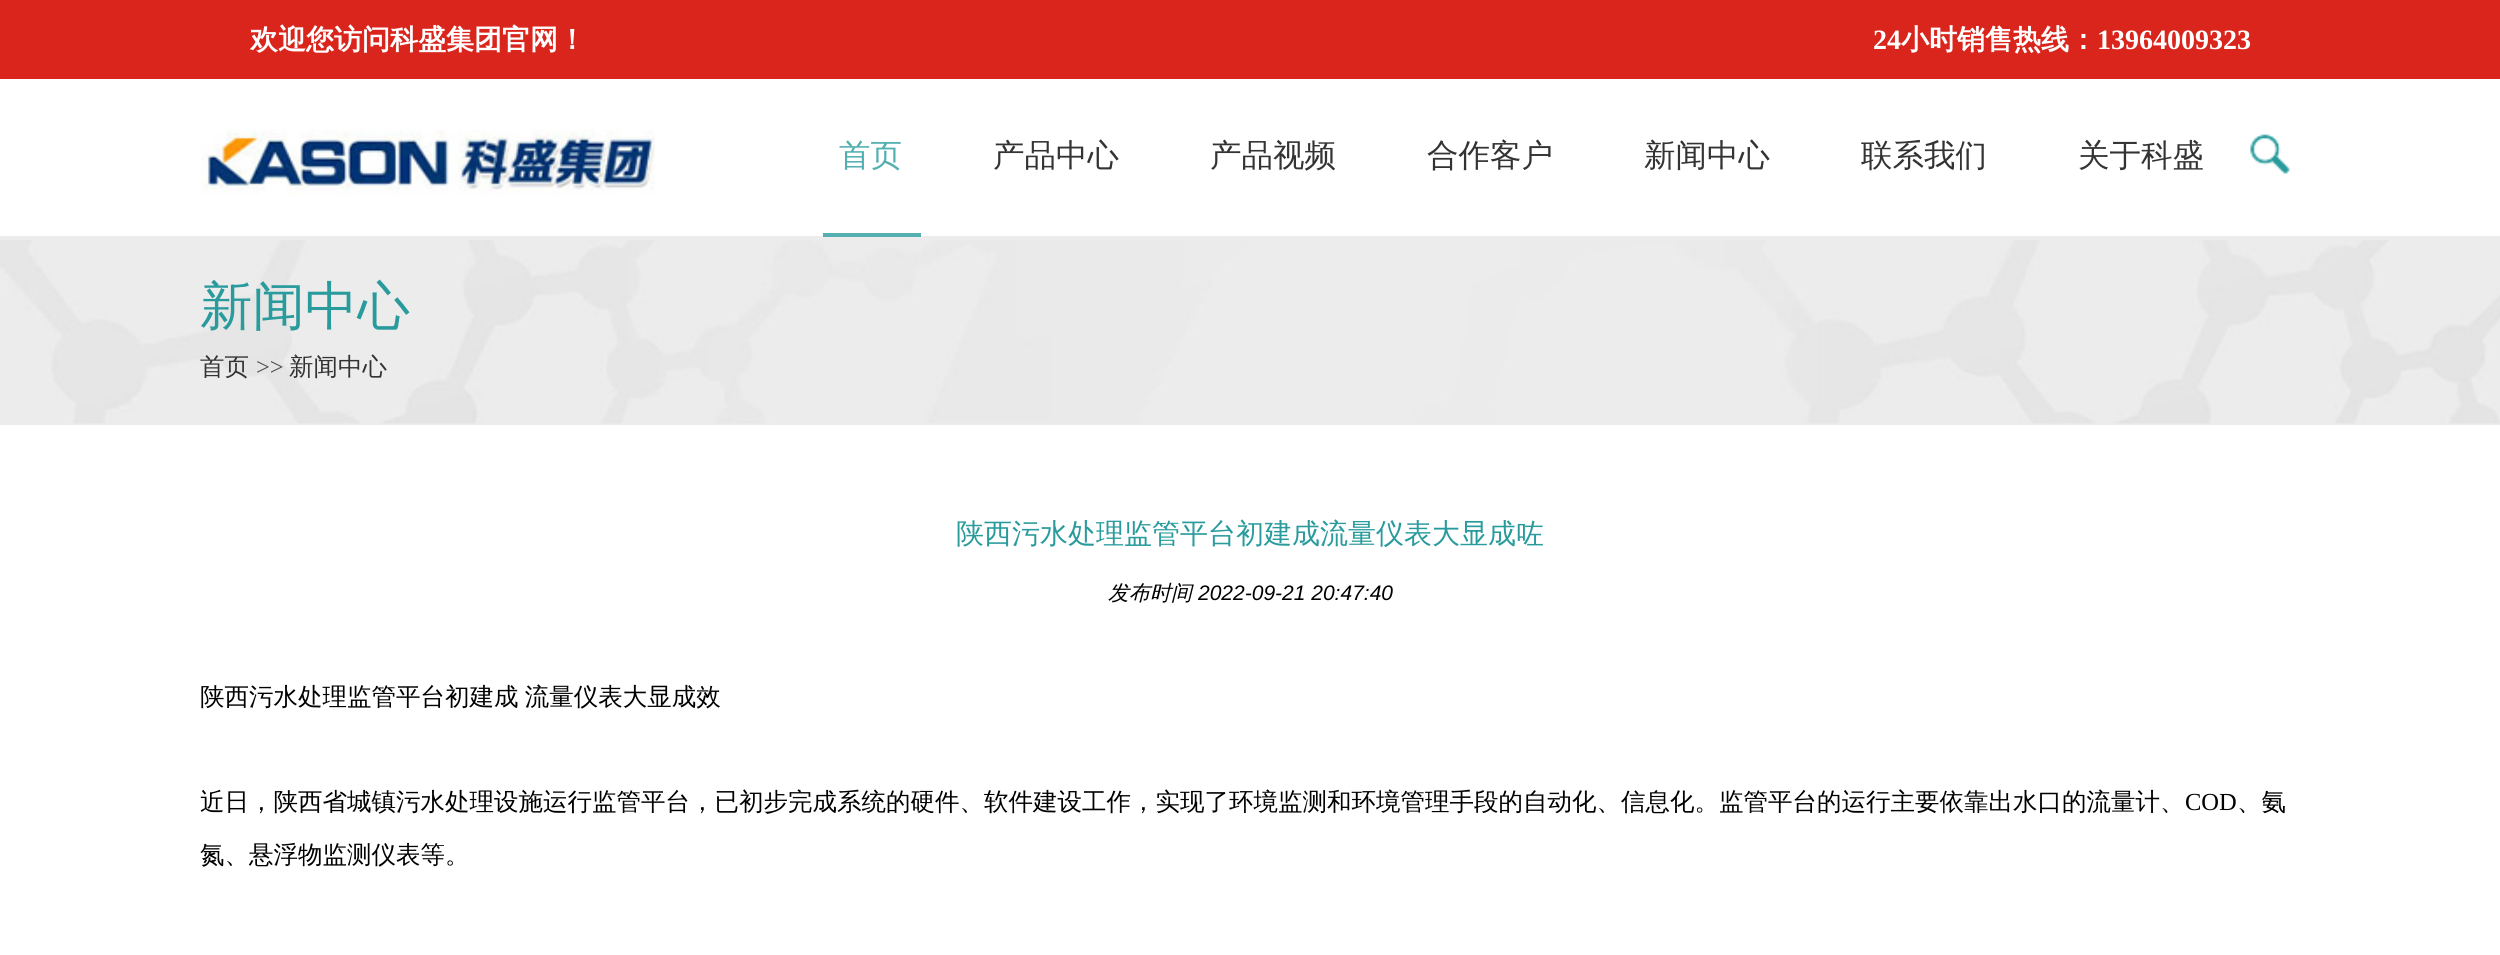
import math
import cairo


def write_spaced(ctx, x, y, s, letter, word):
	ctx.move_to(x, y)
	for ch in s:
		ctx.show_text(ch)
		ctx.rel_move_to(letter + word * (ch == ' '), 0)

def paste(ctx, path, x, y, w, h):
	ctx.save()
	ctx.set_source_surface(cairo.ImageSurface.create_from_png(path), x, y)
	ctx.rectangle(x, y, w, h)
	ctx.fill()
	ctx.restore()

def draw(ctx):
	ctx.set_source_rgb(1, 1, 1)
	ctx.paint()
	ctx.set_source_rgb(0.855, 0.145, 0.11)
	ctx.rectangle(0, 0, 2500, 79)
	ctx.fill()
	ctx.select_font_face('WenQuanYi Zen Hei', cairo.FONT_SLANT_NORMAL, cairo.FONT_WEIGHT_BOLD)
	ctx.set_font_size(28)
	ctx.set_source_rgb(1, 1, 1)
	ctx.move_to(250, 49)
	ctx.show_text('欢迎您访问科盛集团官网！')
	ctx.select_font_face('Liberation Serif', cairo.FONT_SLANT_NORMAL, cairo.FONT_WEIGHT_BOLD)
	ctx.move_to(1873, 49)
	ctx.show_text('24')
	ctx.select_font_face('WenQuanYi Zen Hei', cairo.FONT_SLANT_NORMAL, cairo.FONT_WEIGHT_BOLD)
	ctx.move_to(1901, 49)
	ctx.show_text('小时销售热线：')
	ctx.select_font_face('Liberation Serif', cairo.FONT_SLANT_NORMAL, cairo.FONT_WEIGHT_BOLD)
	ctx.move_to(2097, 49)
	ctx.show_text('13964009323')
	paste(ctx, 'media/1.png', 201, 129, 454, 66)
	ctx.set_source_rgb(0.925, 0.925, 0.925)
	ctx.rectangle(0, 236, 2500, 189)
	ctx.fill()
	ctx.set_source_rgb(0.329, 0.686, 0.694)
	ctx.rectangle(823, 233, 98, 4)
	ctx.fill()
	ctx.select_font_face('WenQuanYi Zen Hei Medium')
	ctx.set_font_size(31.5)
	ctx.move_to(839, 166)
	ctx.show_text('首页')
	ctx.set_source_rgb(0.2, 0.2, 0.2)
	for x, y, s in [
		(993, 166, '产品中心'),
		(1210, 166, '产品视频'),
		(1427, 166, '合作客户'),
		(1644, 166, '新闻中心'),
		(1861, 166, '联系我们'),
		(2078, 166, '关于科盛'),
	]:
		ctx.move_to(x, y)
		ctx.show_text(s)
	paste(ctx, 'media/2.png', 2250, 134, 40, 40)
	paste(ctx, 'media/3.png', 0, 240, 2500, 184)
	ctx.set_font_size(52.5)
	ctx.set_source_rgb(0.161, 0.608, 0.616)
	ctx.move_to(200, 324)
	ctx.show_text('新闻中心')
	ctx.set_font_size(24.5)
	ctx.set_source_rgb(0.2, 0.2, 0.2)
	ctx.move_to(200, 375)
	ctx.show_text('首页')
	ctx.select_font_face('Liberation Serif')
	ctx.set_source_rgb(0.302, 0.302, 0.302)
	ctx.move_to(256, 375)
	ctx.show_text('>>')
	ctx.select_font_face('WenQuanYi Zen Hei Medium')
	ctx.set_source_rgb(0.2, 0.2, 0.2)
	ctx.move_to(289, 375)
	ctx.show_text('新闻中心')
	ctx.set_font_size(28)
	ctx.set_source_rgb(0.161, 0.608, 0.616)
	ctx.move_to(956, 543)
	ctx.show_text('陕西污水处理监管平台初建成流量仪表大显成咗')
	ctx.select_font_face('WenQuanYi Zen Hei Medium', cairo.FONT_SLANT_ITALIC)
	ctx.set_font_size(21)
	ctx.set_source_rgb(0, 0, 0)
	ctx.move_to(1108, 600)
	ctx.show_text('发布时间')
	ctx.select_font_face('Liberation Sans', cairo.FONT_SLANT_ITALIC)
	ctx.move_to(1198, 600)
	ctx.show_text('2022-09-21 20:47:40')
	ctx.select_font_face('WenQuanYi Zen Hei Medium')
	ctx.set_font_size(24.5)
	write_spaced(ctx, 200, 705, '陕西污水处理监管平台初建成 流量仪表大显成效', 0, -1)
	ctx.move_to(200, 810)
	ctx.show_text('近日，陕西省城镇污水处理设施运行监管平台，已初步完成系统的硬件、软件建设工作，实现了环境监测和环境管理手段的自动化、信息化。监管平台的运行主要依靠出水口的流量计、')
	ctx.select_font_face('Liberation Serif')
	ctx.move_to(2185, 810)
	ctx.show_text('COD')
	ctx.select_font_face('WenQuanYi Zen Hei Medium')
	ctx.move_to(2237, 810)
	ctx.show_text('、氨')
	ctx.move_to(200, 863)
	ctx.show_text('氮、悬浮物监测仪表等。')


surface = cairo.ImageSurface(cairo.FORMAT_RGB24, 2500, 955)
ctx = cairo.Context(surface)
options = cairo.FontOptions()
options.set_hint_metrics(cairo.HINT_METRICS_OFF)
options.set_hint_style(cairo.HINT_STYLE_NONE)
ctx.set_font_options(options)
ctx.set_miter_limit(4)
draw(ctx)
surface.write_to_png('image.png')
